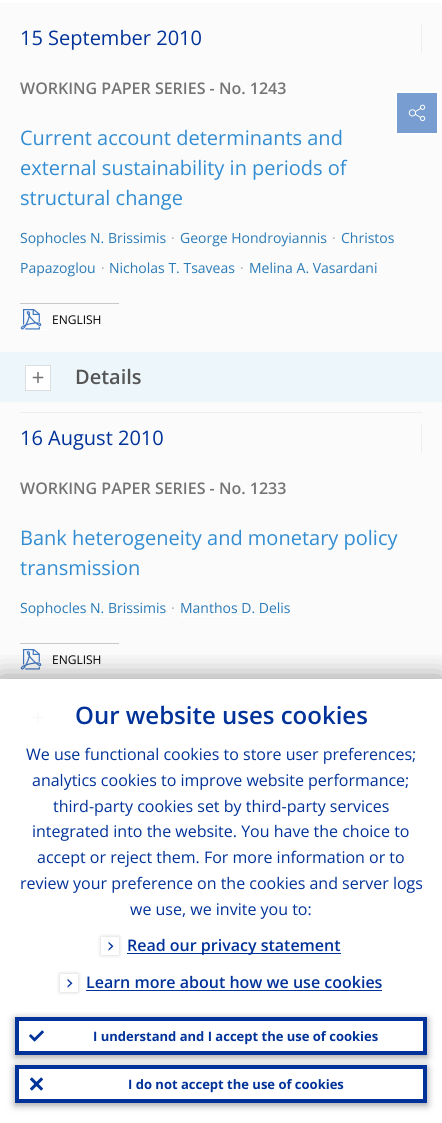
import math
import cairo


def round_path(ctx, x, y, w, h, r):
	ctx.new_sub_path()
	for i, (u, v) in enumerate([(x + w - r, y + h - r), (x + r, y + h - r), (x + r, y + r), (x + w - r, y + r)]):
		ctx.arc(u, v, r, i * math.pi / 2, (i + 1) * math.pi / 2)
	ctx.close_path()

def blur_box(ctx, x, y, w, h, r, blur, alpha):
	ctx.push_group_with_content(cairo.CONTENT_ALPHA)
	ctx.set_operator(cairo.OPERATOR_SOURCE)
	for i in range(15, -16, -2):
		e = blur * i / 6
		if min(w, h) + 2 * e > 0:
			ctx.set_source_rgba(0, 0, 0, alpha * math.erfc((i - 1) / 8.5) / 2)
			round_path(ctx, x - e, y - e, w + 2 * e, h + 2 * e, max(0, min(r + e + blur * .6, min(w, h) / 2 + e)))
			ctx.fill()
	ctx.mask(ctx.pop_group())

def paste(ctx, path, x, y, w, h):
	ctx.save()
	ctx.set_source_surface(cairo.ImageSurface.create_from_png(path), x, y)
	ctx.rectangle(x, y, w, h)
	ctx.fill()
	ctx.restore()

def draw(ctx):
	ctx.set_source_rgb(1, 1, 1)
	ctx.paint()
	ctx.set_source_rgb(0.984, 0.984, 0.984)
	ctx.rectangle(0, 3, 442, 676)
	ctx.fill()
	ctx.select_font_face('Open Sans')
	ctx.set_font_size(20)
	ctx.set_source_rgb(0, 0.196, 0.6)
	ctx.move_to(20, 45)
	ctx.show_text('15 September 2010')
	ctx.set_source_rgb(0.933, 0.933, 0.933)
	ctx.rectangle(421, 23, 1, 30)
	ctx.fill()
	ctx.select_font_face('Open Sans SemiBold')
	ctx.set_font_size(16)
	ctx.set_source_rgb(0.455, 0.455, 0.455)
	ctx.move_to(20, 94)
	ctx.show_text('WORKING PAPER SERIES - No. 1243')
	ctx.select_font_face('Open Sans')
	ctx.set_font_size(20)
	ctx.set_source_rgb(0.196, 0.553, 0.824)
	for x, y, s in [
		(20, 145, 'Current account determinants and'),
		(20, 175, 'external sustainability in periods of'),
		(20, 205, 'structural change'),
	]:
		ctx.move_to(x, y)
		ctx.show_text(s)
	ctx.set_source_rgb(1, 1, 1)
	ctx.rectangle(20, 246, 146, 1)
	ctx.fill()
	ctx.set_font_size(14)
	ctx.set_source_rgb(0.169, 0.478, 0.714)
	ctx.move_to(20, 243)
	ctx.show_text('Sophocles N. Brissimis')
	ctx.set_source_rgb(0.659, 0.663, 0.663)
	ctx.move_to(171, 243)
	ctx.show_text('·')
	ctx.set_source_rgb(0.169, 0.478, 0.714)
	ctx.move_to(341, 243)
	ctx.show_text('Christos')
	ctx.set_source_rgb(1, 1, 1)
	ctx.rectangle(341, 246, 53, 1)
	ctx.fill()
	ctx.rectangle(20, 276, 76, 1)
	ctx.fill()
	ctx.set_source_rgb(0.169, 0.478, 0.714)
	ctx.move_to(20, 273)
	ctx.show_text('Papazoglou')
	ctx.set_source_rgb(0.659, 0.663, 0.663)
	ctx.move_to(101, 273)
	ctx.show_text('·')
	ctx.set_source_rgb(1, 1, 1)
	ctx.rectangle(180, 246, 147, 1)
	ctx.fill()
	ctx.set_source_rgb(0.169, 0.478, 0.714)
	ctx.move_to(180, 243)
	ctx.show_text('George Hondroyiannis')
	ctx.set_source_rgb(0.659, 0.663, 0.663)
	ctx.move_to(332, 243)
	ctx.show_text('·')
	ctx.set_source_rgb(0.169, 0.478, 0.714)
	ctx.move_to(109, 273)
	ctx.show_text('Nicholas T. Tsaveas')
	ctx.set_source_rgb(1, 1, 1)
	ctx.rectangle(109, 276, 126, 1)
	ctx.fill()
	ctx.set_source_rgb(0.659, 0.663, 0.663)
	ctx.move_to(240, 273)
	ctx.show_text('·')
	ctx.set_source_rgb(0.169, 0.478, 0.714)
	ctx.move_to(249, 273)
	ctx.show_text('Melina A. Vasardani')
	ctx.set_source_rgb(1, 1, 1)
	ctx.rectangle(249, 276, 128, 1)
	ctx.fill()
	ctx.set_source_rgb(0.788, 0.788, 0.788)
	ctx.rectangle(20, 303, 99, 1)
	ctx.fill()
	ctx.set_source_rgb(1, 1, 1)
	ctx.rectangle(13, 329, 36, 1)
	ctx.rectangle(49, 327, 53, 1)
	ctx.fill()
	paste(ctx, 'media/1.png', 20, 309, 22, 21)
	ctx.set_font_size(12)
	ctx.set_source_rgb(0, 0, 0)
	ctx.move_to(52, 324)
	ctx.show_text('ENGLISH')
	ctx.set_source_rgb(0.929, 0.961, 0.98)
	ctx.rectangle(0, 352, 442, 50)
	ctx.fill()
	ctx.set_source_rgb(1, 1, 1)
	ctx.rectangle(25.5, 365.5, 25, 25)
	ctx.fill_preserve()
	ctx.set_source_rgb(0.867, 0.867, 0.867)
	ctx.set_line_width(1)
	ctx.stroke()
	paste(ctx, 'media/2.png', 32, 372, 12, 11)
	ctx.select_font_face('Open Sans SemiBold')
	ctx.set_font_size(20)
	ctx.set_source_rgb(0.333, 0.333, 0.333)
	ctx.move_to(75, 384)
	ctx.show_text('Details')
	ctx.set_source_rgb(0.933, 0.933, 0.933)
	ctx.rectangle(20, 412, 402, 1)
	ctx.fill()
	ctx.select_font_face('Open Sans')
	ctx.set_source_rgb(0, 0.196, 0.6)
	ctx.move_to(20, 445)
	ctx.show_text('16 August 2010')
	ctx.set_source_rgb(0.933, 0.933, 0.933)
	ctx.rectangle(421, 423, 1, 30)
	ctx.fill()
	ctx.select_font_face('Open Sans SemiBold')
	ctx.set_font_size(16)
	ctx.set_source_rgb(0.455, 0.455, 0.455)
	ctx.move_to(20, 494)
	ctx.show_text('WORKING PAPER SERIES - No. 1233')
	ctx.select_font_face('Open Sans')
	ctx.set_font_size(20)
	ctx.set_source_rgb(0.196, 0.553, 0.824)
	ctx.move_to(20, 545)
	ctx.show_text('Bank heterogeneity and monetary policy')
	ctx.move_to(20, 575)
	ctx.show_text('transmission')
	ctx.set_source_rgb(1, 1, 1)
	ctx.rectangle(20, 616, 146, 1)
	ctx.fill()
	ctx.set_font_size(14)
	ctx.set_source_rgb(0.169, 0.478, 0.714)
	ctx.move_to(20, 613)
	ctx.show_text('Sophocles N. Brissimis')
	ctx.set_source_rgb(0.659, 0.663, 0.663)
	ctx.move_to(171, 613)
	ctx.show_text('·')
	ctx.set_source_rgb(0.169, 0.478, 0.714)
	ctx.move_to(180, 613)
	ctx.show_text('Manthos D. Delis')
	ctx.set_source_rgb(1, 1, 1)
	ctx.rectangle(180, 616, 110, 1)
	ctx.fill()
	ctx.set_source_rgb(0.788, 0.788, 0.788)
	ctx.rectangle(20, 643, 99, 1)
	ctx.fill()
	ctx.set_source_rgb(1, 1, 1)
	ctx.rectangle(13, 669, 36, 1)
	ctx.rectangle(49, 667, 53, 1)
	ctx.fill()
	paste(ctx, 'media/1.png', 20, 649, 22, 21)
	ctx.set_font_size(12)
	ctx.set_source_rgb(0, 0, 0)
	ctx.move_to(52, 664)
	ctx.show_text('ENGLISH')
	paste(ctx, 'media/3.png', 32, 712, 12, 11)
	ctx.set_source_rgb(0.988, 0.988, 0.988)
	ctx.rectangle(20, 1013, 99, 1)
	ctx.fill()
	ctx.rectangle(396, 92, 42, 42)
	ctx.set_source_rgb(1, 1, 1)
	ctx.set_line_width(2)
	ctx.stroke()
	ctx.set_source_rgb(0.471, 0.62, 0.82)
	ctx.rectangle(397, 93, 40, 40)
	ctx.fill()
	paste(ctx, 'media/4.png', 408, 104, 18, 18)
	ctx.save()
	ctx.rectangle(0, 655, 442, 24)
	ctx.clip()
	ctx.set_source_rgb(0, 0, 0)
	blur_box(ctx, 0, 681, 442, 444, 0, 15, 0.5)
	ctx.restore()
	ctx.select_font_face('Open Sans SemiBold')
	ctx.set_font_size(24)
	ctx.set_source_rgb(0, 0.196, 0.6)
	ctx.move_to(75, 724)
	ctx.show_text('Our website uses cookies')
	ctx.select_font_face('Open Sans')
	ctx.set_font_size(16)
	for x, y, s in [
		(26, 760, 'We use functional cookies to store user preferences;'),
		(32, 786, 'analytics cookies to improve website performance;'),
		(53, 812, 'third-party cookies set by third-party services'),
		(32, 837, 'integrated into the website. You have the choice to'),
		(37, 863, 'accept or reject them. For more information or to'),
		(20, 889, 'review your preference on the cookies and server logs'),
		(130, 915, 'we use, we invite you to:'),
	]:
		ctx.move_to(x, y)
		ctx.show_text(s)
	ctx.save()
	ctx.set_fill_rule(cairo.FILL_RULE_EVEN_ODD)
	ctx.new_path()
	ctx.move_to(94, 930)
	ctx.line_to(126, 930)
	ctx.line_to(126, 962)
	ctx.line_to(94, 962)
	ctx.close_path()
	ctx.move_to(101, 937)
	ctx.line_to(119, 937)
	ctx.line_to(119, 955)
	ctx.line_to(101, 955)
	ctx.close_path()
	ctx.clip()
	ctx.set_source_rgb(0, 0, 0)
	blur_box(ctx, 101, 937, 18, 18, 0, 2, 0.2)
	ctx.restore()
	paste(ctx, 'media/5.png', 108, 941, 6, 10)
	ctx.rectangle(127, 953, 214, 1)
	ctx.fill()
	ctx.select_font_face('Open Sans SemiBold')
	ctx.move_to(127, 951)
	ctx.show_text('Read our privacy statement')
	ctx.set_source_rgb(0, 0, 0)
	blur_box(ctx, 60, 974, 18, 18, 0, 2, 0.2)
	ctx.set_source_rgb(1, 1, 1)
	ctx.rectangle(60, 974, 18, 18)
	ctx.fill()
	paste(ctx, 'media/6.png', 67, 978, 6, 10)
	ctx.set_source_rgb(0, 0.196, 0.6)
	ctx.move_to(86, 988)
	ctx.show_text('Learn more about how we use cookies')
	ctx.rectangle(86, 990, 296, 1)
	ctx.fill()
	ctx.set_source_rgb(0, 0, 0)
	blur_box(ctx, 15, 1019, 412, 38, 0, 4, 0.4)
	ctx.set_source_rgb(1, 1, 1)
	ctx.rectangle(17, 1019, 408, 34)
	ctx.fill_preserve()
	ctx.set_source_rgb(0, 0.196, 0.6)
	ctx.set_line_width(4)
	ctx.stroke()
	paste(ctx, 'media/7.png', 29, 1030, 15, 12)
	ctx.select_font_face('Open Sans', cairo.FONT_SLANT_NORMAL, cairo.FONT_WEIGHT_BOLD)
	ctx.set_font_size(13)
	ctx.move_to(93, 1041)
	ctx.show_text('I understand and I accept the use of cookies')
	ctx.set_source_rgb(0, 0, 0)
	blur_box(ctx, 15, 1067, 412, 38, 0, 4, 0.4)
	ctx.set_source_rgb(1, 1, 1)
	ctx.rectangle(17, 1067, 408, 34)
	ctx.fill_preserve()
	ctx.set_source_rgb(0, 0.196, 0.6)
	ctx.stroke()
	paste(ctx, 'media/8.png', 30, 1077, 13, 14)
	ctx.move_to(128, 1089)
	ctx.show_text('I do not accept the use of cookies')


surface = cairo.ImageSurface(cairo.FORMAT_RGB24, 442, 1123)
ctx = cairo.Context(surface)
options = cairo.FontOptions()
options.set_hint_metrics(cairo.HINT_METRICS_OFF)
options.set_hint_style(cairo.HINT_STYLE_NONE)
ctx.set_font_options(options)
ctx.set_miter_limit(4)
draw(ctx)
surface.write_to_png('image.png')
